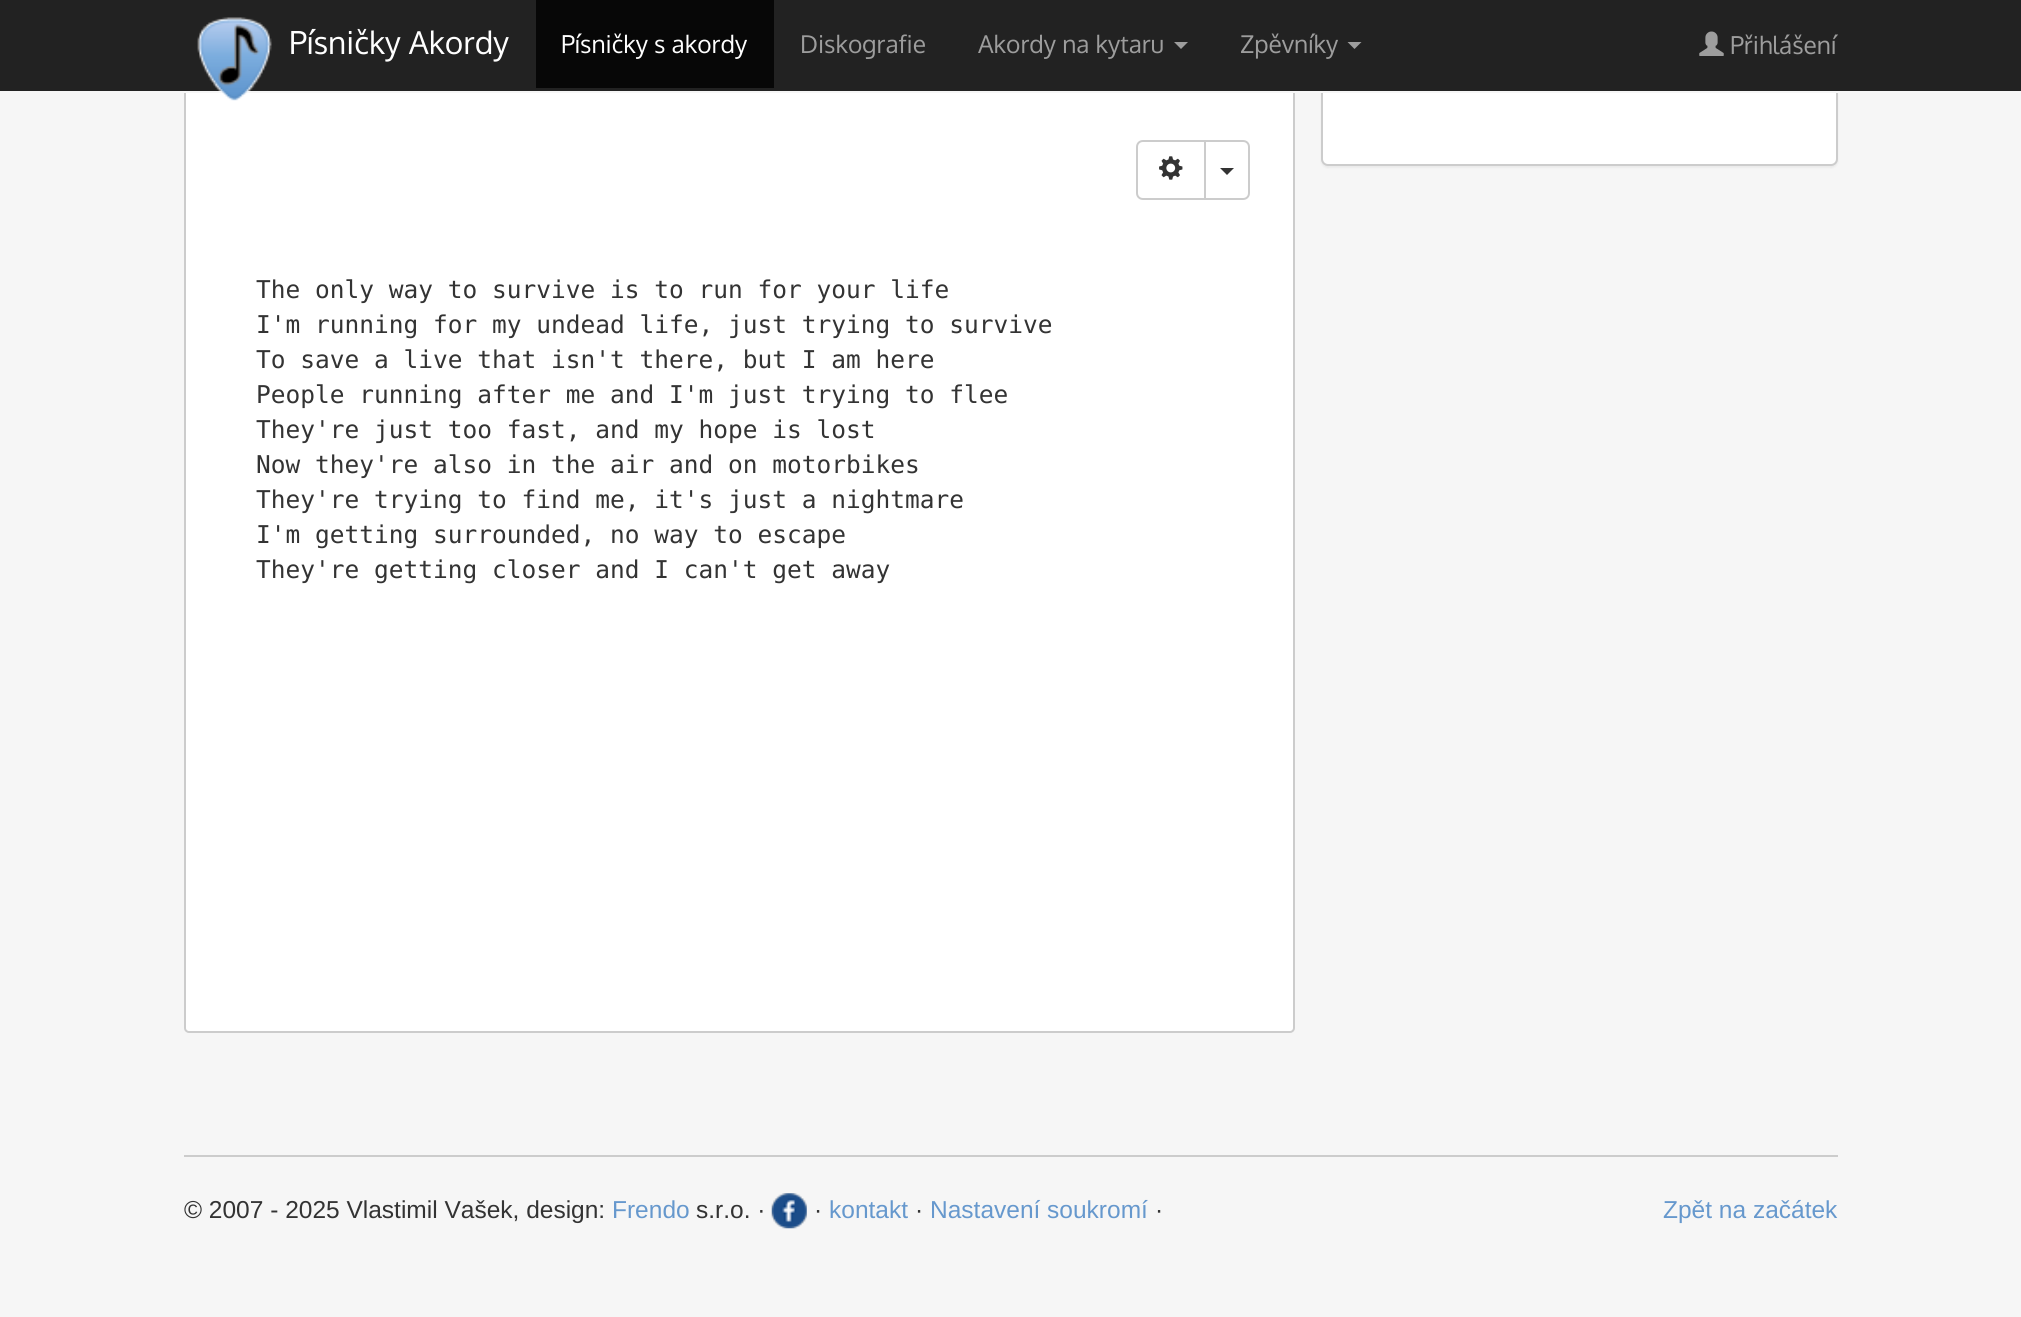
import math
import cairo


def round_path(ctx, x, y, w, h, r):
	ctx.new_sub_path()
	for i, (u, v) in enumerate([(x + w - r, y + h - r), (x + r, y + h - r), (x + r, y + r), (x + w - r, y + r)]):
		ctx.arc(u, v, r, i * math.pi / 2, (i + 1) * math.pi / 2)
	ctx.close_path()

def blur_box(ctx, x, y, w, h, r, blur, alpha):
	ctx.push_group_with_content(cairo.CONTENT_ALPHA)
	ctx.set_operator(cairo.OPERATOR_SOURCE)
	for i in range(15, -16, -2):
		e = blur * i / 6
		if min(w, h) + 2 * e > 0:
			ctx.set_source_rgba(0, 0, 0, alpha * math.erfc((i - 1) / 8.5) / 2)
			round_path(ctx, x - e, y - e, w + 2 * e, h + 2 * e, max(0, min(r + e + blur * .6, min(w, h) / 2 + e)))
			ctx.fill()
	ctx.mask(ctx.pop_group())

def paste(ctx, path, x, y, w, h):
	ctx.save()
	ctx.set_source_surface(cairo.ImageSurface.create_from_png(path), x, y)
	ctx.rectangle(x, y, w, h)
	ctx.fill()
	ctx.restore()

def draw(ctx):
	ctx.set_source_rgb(0.961, 0.961, 0.961)
	ctx.paint()
	ctx.set_source_rgb(0, 0, 0)
	blur_box(ctx, 1321, 7, 517, 161, 7, 1, 0.05)
	ctx.set_source_rgb(1, 1, 1)
	round_path(ctx, 1322, 6, 515, 159, 6)
	ctx.fill_preserve()
	ctx.set_source_rgb(0.8, 0.8, 0.8)
	ctx.stroke()
	ctx.set_source_rgb(1, 1, 1)
	round_path(ctx, 185, 6, 1109, 1026, 4)
	ctx.fill_preserve()
	ctx.set_source_rgb(0.8, 0.8, 0.8)
	ctx.stroke()
	ctx.set_source_rgb(0.133, 0.133, 0.133)
	ctx.rectangle(0, 0, 2021, 91)
	ctx.fill()
	ctx.set_source_rgb(0.961, 0.961, 0.961)
	ctx.rectangle(184, 91, 1655, 2)
	ctx.fill()
	paste(ctx, 'media/1.png', 197, 17, 75, 85)
	ctx.select_font_face('Oxygen')
	ctx.set_font_size(31.5)
	ctx.set_source_rgb(1, 1, 1)
	ctx.move_to(289, 54)
	ctx.show_text('Písničky Akordy')
	ctx.set_source_rgb(0.031, 0.031, 0.031)
	ctx.rectangle(536, 0, 238, 88)
	ctx.fill()
	ctx.set_font_size(24.5)
	ctx.set_source_rgb(1, 1, 1)
	ctx.move_to(561, 53)
	ctx.show_text('Písničky s akordy')
	ctx.set_source_rgb(0.616, 0.616, 0.616)
	ctx.move_to(800, 53)
	ctx.show_text('Diskografie')
	ctx.move_to(978, 53)
	ctx.show_text('Akordy na kytaru')
	ctx.new_path()
	ctx.move_to(1174, 42)
	ctx.line_to(1188, 42)
	ctx.line_to(1181, 49)
	ctx.close_path()
	ctx.fill()
	ctx.move_to(1240, 53)
	ctx.show_text('Zpěvníky')
	ctx.new_path()
	ctx.move_to(1347.5, 42)
	ctx.line_to(1361.5, 42)
	ctx.line_to(1354.5, 49)
	ctx.close_path()
	ctx.fill()
	paste(ctx, 'media/2.png', 1699, 31, 25, 25)
	ctx.move_to(1730, 54)
	ctx.show_text('Přihlášení')
	ctx.new_path()
	ctx.move_to(1143, 141)
	ctx.line_to(1205, 141)
	ctx.line_to(1205, 199)
	ctx.line_to(1143, 199)
	ctx.curve_to(1139.5, 199, 1137, 196.5, 1137, 193)
	ctx.line_to(1137, 147)
	ctx.curve_to(1137, 143.5, 1139.5, 141, 1143, 141)
	ctx.close_path()
	ctx.set_source_rgb(0.8, 0.8, 0.8)
	ctx.stroke()
	paste(ctx, 'media/3.png', 1159, 156, 24, 24)
	ctx.set_source_rgb(1, 1, 1)
	ctx.new_path()
	ctx.move_to(1205, 141)
	ctx.line_to(1243, 141)
	ctx.curve_to(1246.5, 141, 1249, 143.5, 1249, 147)
	ctx.line_to(1249, 193)
	ctx.curve_to(1249, 196.5, 1246.5, 199, 1243, 199)
	ctx.line_to(1205, 199)
	ctx.close_path()
	ctx.fill_preserve()
	ctx.set_source_rgb(0.8, 0.8, 0.8)
	ctx.stroke()
	ctx.set_source_rgb(0.2, 0.2, 0.2)
	ctx.new_path()
	ctx.move_to(1220, 168)
	ctx.line_to(1234, 168)
	ctx.line_to(1227, 175)
	ctx.close_path()
	ctx.fill()
	ctx.select_font_face('DejaVu Sans Mono')
	for x, y, s in [
		(256, 298, 'The only way to survive is to run for your life'),
		(256, 333, 'I\'m running for my undead life, just trying to survive'),
		(256, 368, 'To save a live that isn\'t there, but I am here'),
		(256, 403, 'People running after me and I\'m just trying to flee'),
		(256, 438, 'They\'re just too fast, and my hope is lost'),
		(256, 473, 'Now they\'re also in the air and on motorbikes'),
		(256, 508, 'They\'re trying to find me, it\'s just a nightmare'),
		(256, 543, 'I\'m getting surrounded, no way to escape'),
		(256, 578, 'They\'re getting closer and I can\'t get away'),
	]:
		ctx.move_to(x, y)
		ctx.show_text(s)
	ctx.set_source_rgb(0.8, 0.8, 0.8)
	ctx.rectangle(184, 1155, 1654, 2)
	ctx.fill()
	ctx.select_font_face('Liberation Sans')
	ctx.set_source_rgb(0.2, 0.2, 0.2)
	ctx.move_to(184, 1218)
	ctx.show_text('© 2007 - 2025 Vlastimil Vašek, design:')
	ctx.set_source_rgb(0.4, 0.596, 0.804)
	ctx.move_to(612, 1218)
	ctx.show_text('Frendo')
	ctx.set_source_rgb(0.2, 0.2, 0.2)
	ctx.move_to(696, 1218)
	ctx.show_text('s.r.o. ·')
	paste(ctx, 'media/4.png', 771, 1193, 36, 36)
	ctx.move_to(814, 1218)
	ctx.show_text('·')
	ctx.set_source_rgb(0.4, 0.596, 0.804)
	ctx.move_to(829, 1218)
	ctx.show_text('kontakt')
	ctx.set_source_rgb(0.2, 0.2, 0.2)
	ctx.move_to(915, 1218)
	ctx.show_text('·')
	ctx.set_source_rgb(0.4, 0.596, 0.804)
	ctx.move_to(930, 1218)
	ctx.show_text('Nastavení soukromí')
	ctx.set_source_rgb(0.2, 0.2, 0.2)
	ctx.move_to(1155, 1218)
	ctx.show_text('·')
	ctx.set_source_rgb(0.4, 0.596, 0.804)
	ctx.move_to(1663, 1218)
	ctx.show_text('Zpět na začátek')


surface = cairo.ImageSurface(cairo.FORMAT_RGB24, 2021, 1317)
ctx = cairo.Context(surface)
options = cairo.FontOptions()
options.set_hint_metrics(cairo.HINT_METRICS_OFF)
options.set_hint_style(cairo.HINT_STYLE_NONE)
ctx.set_font_options(options)
ctx.set_miter_limit(4)
draw(ctx)
surface.write_to_png('image.png')
